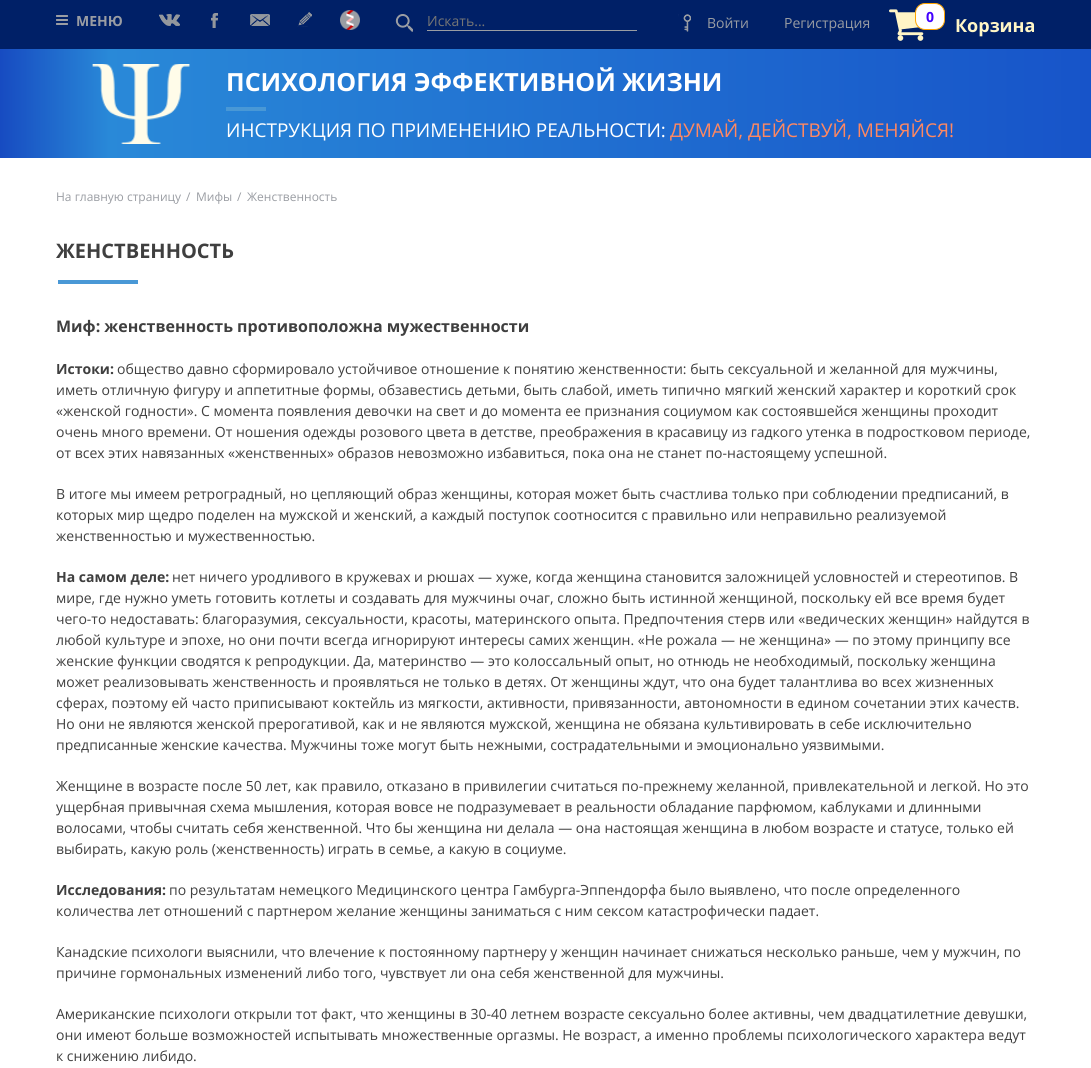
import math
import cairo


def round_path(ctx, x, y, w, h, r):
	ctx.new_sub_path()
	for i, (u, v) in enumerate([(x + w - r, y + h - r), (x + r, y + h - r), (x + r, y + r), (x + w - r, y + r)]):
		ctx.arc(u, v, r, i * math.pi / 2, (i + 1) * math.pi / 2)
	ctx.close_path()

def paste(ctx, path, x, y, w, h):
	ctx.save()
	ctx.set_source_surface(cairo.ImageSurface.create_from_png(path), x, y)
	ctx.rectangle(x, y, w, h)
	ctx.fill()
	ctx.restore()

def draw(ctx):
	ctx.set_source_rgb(1, 1, 1)
	ctx.paint()
	ctx.set_source_rgb(0, 0.125, 0.404)
	ctx.rectangle(0, 0, 1091, 49)
	ctx.fill()
	paste(ctx, 'media/1.png', 56, 15, 12, 10)
	ctx.select_font_face('Open Sans', cairo.FONT_SLANT_NORMAL, cairo.FONT_WEIGHT_BOLD)
	ctx.set_font_size(14)
	ctx.set_source_rgb(0.604, 0.616, 0.639)
	ctx.move_to(76, 26)
	ctx.show_text('МЕНЮ')
	paste(ctx, 'media/2.png', 159, 14, 21, 12)
	paste(ctx, 'media/3.png', 211, 13, 7, 15)
	paste(ctx, 'media/4.png', 250, 14, 20, 12)
	paste(ctx, 'media/5.png', 297, 12, 15, 15)
	paste(ctx, 'media/6.png', 340, 10, 20, 20)
	paste(ctx, 'media/7.png', 395, 14, 18, 18)
	ctx.rectangle(427, 30, 210, 1)
	ctx.fill()
	ctx.select_font_face('Open Sans')
	ctx.set_source_rgb(0.459, 0.459, 0.459)
	ctx.move_to(427, 26)
	ctx.show_text('Искать...')
	paste(ctx, 'media/8.png', 678, 14, 13, 18)
	ctx.set_source_rgb(0.604, 0.616, 0.639)
	ctx.move_to(707, 28)
	ctx.show_text('Войти')
	ctx.move_to(784, 28)
	ctx.show_text('Регистрация')
	paste(ctx, 'media/9.png', 889, 9, 35, 32)
	ctx.set_source_rgb(1, 1, 1)
	round_path(ctx, 915.5, 3.5, 29, 26, 9.5)
	ctx.fill_preserve()
	ctx.set_source_rgb(1, 0.647, 0)
	ctx.set_line_width(1)
	ctx.stroke()
	ctx.select_font_face('Open Sans', cairo.FONT_SLANT_NORMAL, cairo.FONT_WEIGHT_BOLD)
	ctx.set_source_rgb(0.255, 0, 1)
	ctx.move_to(926, 22)
	ctx.show_text('0')
	ctx.set_font_size(18)
	ctx.set_source_rgb(1, 0.961, 0.776)
	ctx.move_to(955, 32)
	ctx.show_text('Корзина')
	gradient = cairo.LinearGradient(0, 104, 1091, 103)
	gradient.add_color_stop_rgba(0, 0.09, 0.294, 0.757, 1)
	gradient.add_color_stop_rgba(0.1, 0.161, 0.537, 0.847, 1)
	gradient.add_color_stop_rgba(1, 0.09, 0.329, 0.788, 1)
	ctx.set_source(gradient)
	ctx.rectangle(0, 49, 1091, 109)
	ctx.fill()
	paste(ctx, 'media/10.png', 92, 64, 98, 80)
	ctx.set_font_size(25)
	ctx.set_source_rgb(1, 1, 1)
	ctx.move_to(226, 91)
	ctx.show_text('ПСИХОЛОГИЯ ЭФФЕКТИВНОЙ ЖИЗНИ')
	ctx.set_source_rgb(0.286, 0.596, 0.839)
	ctx.rectangle(226, 107, 40, 4)
	ctx.fill()
	ctx.select_font_face('Open Sans')
	ctx.set_font_size(19)
	ctx.set_source_rgb(1, 1, 1)
	ctx.move_to(226, 137)
	ctx.show_text('ИНСТРУКЦИЯ ПО ПРИМЕНЕНИЮ РЕАЛЬНОСТИ:')
	ctx.set_source_rgb(1, 0.533, 0.38)
	ctx.move_to(670, 137)
	ctx.show_text('ДУМАЙ, ДЕЙСТВУЙ, МЕНЯЙСЯ!')
	ctx.set_font_size(12)
	ctx.set_source_rgb(0.604, 0.616, 0.639)
	for x, y, s in [
		(56, 201, 'На главную страницу'),
		(186, 201, '/'),
		(196, 201, 'Мифы'),
		(237, 201, '/'),
		(247, 201, 'Женственность'),
	]:
		ctx.move_to(x, y)
		ctx.show_text(s)
	ctx.select_font_face('Open Sans', cairo.FONT_SLANT_NORMAL, cairo.FONT_WEIGHT_BOLD)
	ctx.set_font_size(20)
	ctx.set_source_rgb(0.247, 0.247, 0.247)
	ctx.move_to(56, 258)
	ctx.show_text('ЖЕНСТВЕННОСТЬ')
	ctx.set_source_rgb(0.286, 0.596, 0.839)
	ctx.rectangle(58, 280, 80, 4)
	ctx.fill()
	ctx.set_font_size(16)
	ctx.set_source_rgb(0.247, 0.247, 0.247)
	ctx.move_to(56, 332)
	ctx.show_text('Миф: женственность противоположна мужественности')
	ctx.set_font_size(14)
	ctx.move_to(56, 374)
	ctx.show_text('Истоки:')
	ctx.select_font_face('Open Sans')
	for x, y, s in [
		(117, 374, 'общество давно сформировало устойчивое отношение к понятию женственности: быть сексуальной и желанной для мужчины,'),
		(56, 395, 'иметь отличную фигуру и аппетитные формы, обзавестись детьми, быть слабой, иметь типично мягкий женский характер и короткий срок'),
		(56, 416, '«женской годности». С момента появления девочки на свет и до момента ее признания социумом как состоявшейся женщины проходит'),
		(56, 437, 'очень много времени. От ношения одежды розового цвета в детстве, преображения в красавицу из гадкого утенка в подростковом периоде,'),
		(56, 458, 'от всех этих навязанных «женственных» образов невозможно избавиться, пока она не станет по-настоящему успешной.'),
		(56, 499, 'В итоге мы имеем ретроградный, но цепляющий образ женщины, которая может быть счастлива только при соблюдении предписаний, в'),
		(56, 520, 'которых мир щедро поделен на мужской и женский, а каждый поступок соотносится с правильно или неправильно реализуемой'),
		(56, 541, 'женственностью и мужественностью.'),
	]:
		ctx.move_to(x, y)
		ctx.show_text(s)
	ctx.select_font_face('Open Sans', cairo.FONT_SLANT_NORMAL, cairo.FONT_WEIGHT_BOLD)
	ctx.move_to(56, 582)
	ctx.show_text('На самом деле:')
	ctx.select_font_face('Open Sans')
	for x, y, s in [
		(172, 582, 'нет ничего уродливого в кружевах и рюшах — хуже, когда женщина становится заложницей условностей и стереотипов. В'),
		(56, 603, 'мире, где нужно уметь готовить котлеты и создавать для мужчины очаг, сложно быть истинной женщиной, поскольку ей все время будет'),
		(56, 624, 'чего-то недоставать: благоразумия, сексуальности, красоты, материнского опыта. Предпочтения стерв или «ведических женщин» найдутся в'),
		(56, 645, 'любой культуре и эпохе, но они почти всегда игнорируют интересы самих женщин. «Не рожала — не женщина» — по этому принципу все'),
		(56, 666, 'женские функции сводятся к репродукции. Да, материнство — это колоссальный опыт, но отнюдь не необходимый, поскольку женщина'),
		(56, 687, 'может реализовывать женственность и проявляться не только в детях. От женщины ждут, что она будет талантлива во всех жизненных'),
		(56, 708, 'сферах, поэтому ей часто приписывают коктейль из мягкости, активности, привязанности, автономности в едином сочетании этих качеств.'),
		(56, 729, 'Но они не являются женской прерогативой, как и не являются мужской, женщина не обязана культивировать в себе исключительно'),
		(56, 750, 'предписанные женские качества. Мужчины тоже могут быть нежными, сострадательными и эмоционально уязвимыми.'),
		(56, 791, 'Женщине в возрасте после 50 лет, как правило, отказано в привилегии считаться по-прежнему желанной, привлекательной и легкой. Но это'),
	]:
		ctx.move_to(x, y)
		ctx.show_text(s)
	ctx.save()
	ctx.rectangle(56, 765, 980, 104)
	ctx.clip()
	ctx.move_to(56, 812)
	ctx.show_text('ущербная привычная схема мышления, которая вовсе не подразумевает в реальности обладание парфюмом, каблуками и длинными')
	ctx.restore()
	ctx.move_to(56, 833)
	ctx.show_text('волосами, чтобы считать себя женственной. Что бы женщина ни делала — она настоящая женщина в любом возрасте и статусе, только ей')
	ctx.move_to(56, 854)
	ctx.show_text('выбирать, какую роль (женственность) играть в семье, а какую в социуме.')
	ctx.select_font_face('Open Sans', cairo.FONT_SLANT_NORMAL, cairo.FONT_WEIGHT_BOLD)
	ctx.move_to(56, 895)
	ctx.show_text('Исследования:')
	ctx.select_font_face('Open Sans')
	for x, y, s in [
		(169, 895, 'по результатам немецкого Медицинского центра Гамбурга-Эппендорфа было выявлено, что после определенного'),
		(56, 916, 'количества лет отношений с партнером желание женщины заниматься с ним сексом катастрофически падает.'),
		(56, 957, 'Канадские психологи выяснили, что влечение к постоянному партнеру у женщин начинает снижаться несколько раньше, чем у мужчин, по'),
		(56, 978, 'причине гормональных изменений либо того, чувствует ли она себя женственной для мужчины.'),
		(56, 1019, 'Американские психологи открыли тот факт, что женщины в 30-40 летнем возрасте сексуально более активны, чем двадцатилетние девушки,'),
		(56, 1040, 'они имеют больше возможностей испытывать множественные оргазмы. Не возраст, а именно проблемы психологического характера ведут'),
		(56, 1061, 'к снижению либидо.'),
	]:
		ctx.move_to(x, y)
		ctx.show_text(s)


surface = cairo.ImageSurface(cairo.FORMAT_RGB24, 1091, 1068)
ctx = cairo.Context(surface)
options = cairo.FontOptions()
options.set_hint_metrics(cairo.HINT_METRICS_OFF)
options.set_hint_style(cairo.HINT_STYLE_NONE)
ctx.set_font_options(options)
ctx.set_miter_limit(4)
draw(ctx)
surface.write_to_png('image.png')
